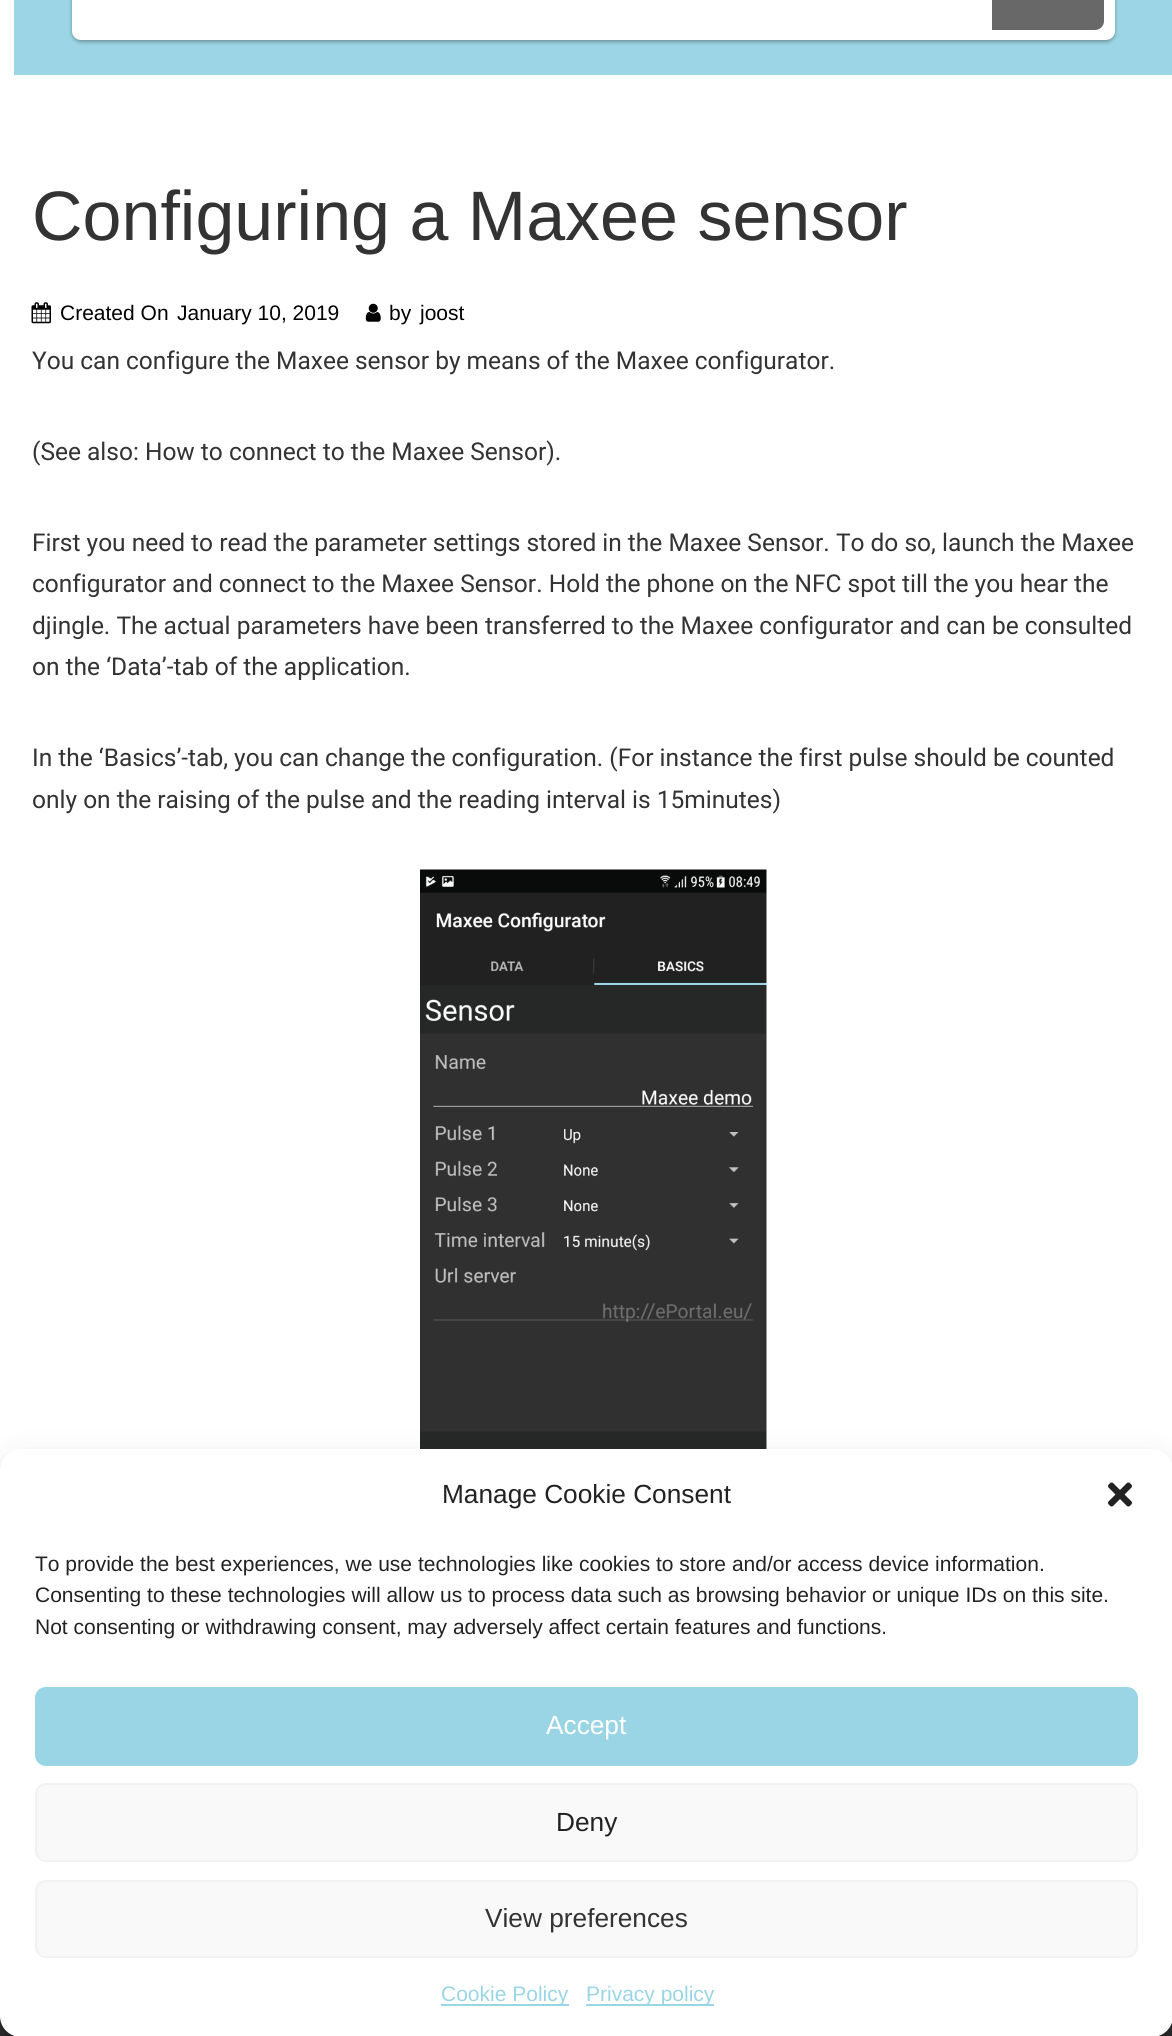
import math
import cairo


def round_path(ctx, x, y, w, h, r):
	ctx.new_sub_path()
	for i, (u, v) in enumerate([(x + w - r, y + h - r), (x + r, y + h - r), (x + r, y + r), (x + w - r, y + r)]):
		ctx.arc(u, v, r, i * math.pi / 2, (i + 1) * math.pi / 2)
	ctx.close_path()

def blur_box(ctx, x, y, w, h, r, blur, alpha):
	ctx.push_group_with_content(cairo.CONTENT_ALPHA)
	ctx.set_operator(cairo.OPERATOR_SOURCE)
	for i in range(15, -16, -2):
		e = blur * i / 6
		if min(w, h) + 2 * e > 0:
			ctx.set_source_rgba(0, 0, 0, alpha * math.erfc((i - 1) / 8.5) / 2)
			round_path(ctx, x - e, y - e, w + 2 * e, h + 2 * e, max(0, min(r + e + blur * .6, min(w, h) / 2 + e)))
			ctx.fill()
	ctx.mask(ctx.pop_group())

def paste(ctx, path, x, y, w, h):
	ctx.save()
	ctx.set_source_surface(cairo.ImageSurface.create_from_png(path), x, y)
	ctx.rectangle(x, y, w, h)
	ctx.fill()
	ctx.restore()

def draw(ctx):
	ctx.set_source_rgb(1, 1, 1)
	ctx.paint()
	ctx.set_source_rgb(0.612, 0.835, 0.898)
	ctx.rectangle(14, 0, 1158, 75)
	ctx.fill()
	ctx.set_source_rgb(0, 0, 0)
	blur_box(ctx, 72, -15, 1043, 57, 9, 2, 0.32)
	ctx.set_source_rgb(1, 1, 1)
	round_path(ctx, 72, -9, 1043, 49, 9)
	ctx.fill()
	ctx.set_source_rgb(0.408, 0.408, 0.408)
	ctx.new_path()
	ctx.move_to(992, -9)
	ctx.line_to(1095, -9)
	ctx.curve_to(1100, -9, 1104, -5, 1104, 0)
	ctx.line_to(1104, 21)
	ctx.curve_to(1104, 26, 1100, 30, 1095, 30)
	ctx.line_to(992, 30)
	ctx.close_path()
	ctx.fill()
	ctx.select_font_face('Liberation Sans')
	ctx.set_font_size(70)
	ctx.set_source_rgb(0.2, 0.2, 0.2)
	ctx.move_to(32, 240)
	ctx.show_text('Configuring a Maxee sensor')
	paste(ctx, 'media/1.png', 31, 302, 20, 22)
	ctx.set_font_size(21)
	ctx.set_source_rgb(0, 0, 0)
	ctx.move_to(60, 320)
	ctx.show_text('Created On')
	ctx.move_to(177, 320)
	ctx.show_text('January 10, 2019')
	paste(ctx, 'media/2.png', 365, 303, 16, 19)
	ctx.move_to(389, 320)
	ctx.show_text('by')
	ctx.move_to(420, 320)
	ctx.show_text('joost')
	ctx.select_font_face('Roboto')
	ctx.set_font_size(24.5)
	ctx.set_source_rgb(0.2, 0.2, 0.2)
	for x, y, s in [
		(32, 369, 'You can configure the Maxee sensor by means of the Maxee configurator.'),
		(32, 460, '(See also: How to connect to the Maxee Sensor).'),
		(32, 551, 'First you need to read the parameter settings stored in the Maxee Sensor. To do so, launch the Maxee'),
		(32, 592, 'configurator and connect to the Maxee Sensor. Hold the phone on the NFC spot till the you hear the'),
		(32, 634, 'djingle. The actual parameters have been transferred to the Maxee configurator and can be consulted'),
		(32, 675, 'on the ‘Data’-tab of the application.'),
		(32, 766, 'In the ‘Basics’-tab, you can change the configuration. (For instance the first pulse should be counted'),
		(32, 808, 'only on the raising of the pulse and the reading interval is 15minutes)'),
	]:
		ctx.move_to(x, y)
		ctx.show_text(s)
	paste(ctx, 'media/3.png', 420, 869, 347, 580)
	ctx.set_source_rgb(0.192, 0.192, 0.204)
	ctx.rectangle(0, 2016, 1172, 20)
	ctx.fill()
	ctx.set_source_rgb(0, 0, 0)
	blur_box(ctx, 0, 1460, 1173, 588, 21, 5, 0.23)
	blur_box(ctx, 0, 1467, 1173, 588, 21, 17.5, 0.19)
	ctx.set_source_rgb(1, 1, 1)
	round_path(ctx, 0, 1449, 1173, 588, 21)
	ctx.fill()
	ctx.select_font_face('Liberation Sans')
	ctx.set_font_size(26.25)
	ctx.set_source_rgb(0.133, 0.133, 0.133)
	ctx.move_to(442, 1503)
	ctx.show_text('Manage Cookie Consent')
	paste(ctx, 'media/4.png', 1108, 1482, 24, 25)
	ctx.set_font_size(21)
	for x, y, s in [
		(35, 1571, 'To provide the best experiences, we use technologies like cookies to store and/or access device information.'),
		(35, 1602, 'Consenting to these technologies will allow us to process data such as browsing behavior or unique IDs on this site.'),
		(35, 1634, 'Not consenting or withdrawing consent, may adversely affect certain features and functions.'),
	]:
		ctx.move_to(x, y)
		ctx.show_text(s)
	ctx.set_source_rgb(0.604, 0.835, 0.902)
	round_path(ctx, 36, 1688, 1101, 77, 10)
	ctx.fill_preserve()
	ctx.stroke()
	ctx.set_font_size(26.25)
	ctx.set_source_rgb(1, 1, 1)
	ctx.move_to(546, 1734)
	ctx.show_text('Accept')
	ctx.set_source_rgb(0.976, 0.976, 0.976)
	round_path(ctx, 36, 1784, 1101, 77, 10)
	ctx.fill_preserve()
	ctx.set_source_rgb(0.949, 0.949, 0.949)
	ctx.stroke()
	ctx.set_source_rgb(0.133, 0.133, 0.133)
	ctx.move_to(556, 1831)
	ctx.show_text('Deny')
	ctx.set_source_rgb(0.976, 0.976, 0.976)
	round_path(ctx, 36, 1881, 1101, 76, 10)
	ctx.fill_preserve()
	ctx.set_source_rgb(0.949, 0.949, 0.949)
	ctx.stroke()
	ctx.set_source_rgb(0.2, 0.2, 0.2)
	ctx.move_to(485, 1927)
	ctx.show_text('View preferences')
	ctx.set_source_rgb(0.604, 0.835, 0.902)
	ctx.rectangle(441, 2004, 128, 2)
	ctx.fill()
	ctx.set_font_size(21)
	ctx.move_to(441, 2001)
	ctx.show_text('Cookie Policy')
	ctx.rectangle(586, 2004, 128, 2)
	ctx.fill()
	ctx.move_to(586, 2001)
	ctx.show_text('Privacy policy')


surface = cairo.ImageSurface(cairo.FORMAT_RGB24, 1172, 2036)
ctx = cairo.Context(surface)
options = cairo.FontOptions()
options.set_hint_metrics(cairo.HINT_METRICS_OFF)
options.set_hint_style(cairo.HINT_STYLE_NONE)
ctx.set_font_options(options)
ctx.set_miter_limit(4)
draw(ctx)
surface.write_to_png('image.png')
